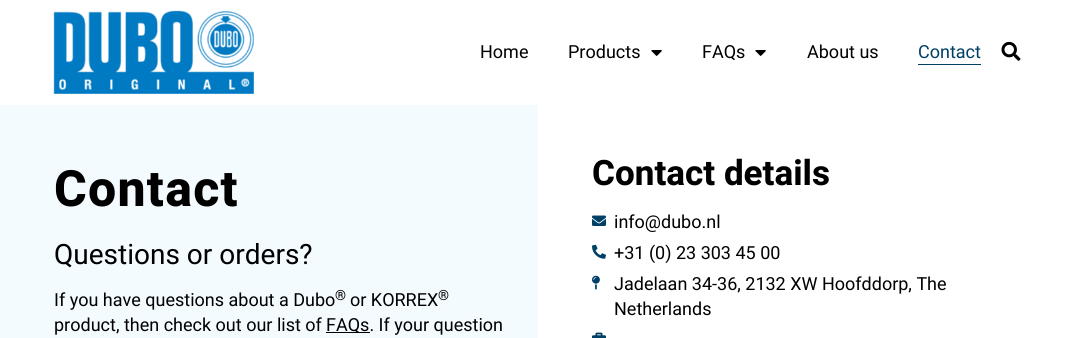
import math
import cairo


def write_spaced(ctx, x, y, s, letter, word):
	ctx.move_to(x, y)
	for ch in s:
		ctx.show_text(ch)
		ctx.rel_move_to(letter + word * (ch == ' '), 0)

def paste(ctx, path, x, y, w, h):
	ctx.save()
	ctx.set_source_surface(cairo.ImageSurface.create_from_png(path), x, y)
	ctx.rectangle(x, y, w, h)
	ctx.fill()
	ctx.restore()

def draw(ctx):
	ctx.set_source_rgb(1, 1, 1)
	ctx.paint()
	paste(ctx, 'media/1.png', 53, 10, 201, 84)
	ctx.select_font_face('Heebo')
	ctx.set_font_size(18)
	ctx.set_source_rgb(0, 0, 0)
	ctx.move_to(480, 58)
	ctx.show_text('Home')
	ctx.move_to(568, 58)
	ctx.show_text('Products')
	paste(ctx, 'media/2.png', 651, 50, 11, 6)
	ctx.move_to(702, 58)
	ctx.show_text('FAQs')
	paste(ctx, 'media/2.png', 755, 50, 11, 6)
	ctx.move_to(807, 58)
	ctx.show_text('About us')
	ctx.set_source_rgb(0, 0.247, 0.4)
	ctx.move_to(918, 58)
	ctx.show_text('Contact')
	ctx.rectangle(918, 64, 63, 1)
	ctx.fill()
	paste(ctx, 'media/3.png', 1001, 41, 20, 20)
	ctx.set_source_rgb(0.957, 0.984, 1)
	ctx.rectangle(0, 105, 538, 233)
	ctx.fill()
	ctx.select_font_face('Heebo ExtraBold')
	ctx.set_font_size(50)
	ctx.set_source_rgb(0, 0, 0)
	write_spaced(ctx, 54, 206, 'Contact', 1.25, 0)
	ctx.select_font_face('Heebo')
	ctx.set_font_size(28)
	ctx.move_to(54, 264)
	ctx.show_text('Questions or orders?')
	ctx.set_font_size(18)
	ctx.move_to(54, 306)
	ctx.show_text('If you have questions about a Dubo')
	ctx.set_font_size(14)
	ctx.move_to(335, 300)
	ctx.show_text('®')
	ctx.set_font_size(18)
	ctx.move_to(350, 306)
	ctx.show_text('or KORREX')
	ctx.set_font_size(14)
	ctx.move_to(438, 300)
	ctx.show_text('®')
	ctx.set_font_size(18)
	ctx.move_to(54, 331)
	ctx.show_text('product, then check out our list of')
	ctx.rectangle(326, 332, 44, 1)
	ctx.fill()
	ctx.move_to(326, 331)
	ctx.show_text('FAQs. If your question')
	ctx.select_font_face('Heebo', cairo.FONT_SLANT_NORMAL, cairo.FONT_WEIGHT_BOLD)
	ctx.set_font_size(35)
	ctx.move_to(592, 185)
	ctx.show_text('Contact details')
	paste(ctx, 'media/4.png', 592, 215, 14, 11)
	ctx.select_font_face('Heebo')
	ctx.set_font_size(18)
	ctx.move_to(614, 228)
	ctx.show_text('info@dubo.nl')
	paste(ctx, 'media/5.png', 592, 244, 14, 15)
	ctx.move_to(614, 259)
	ctx.show_text('+31 (0) 23 303 45 00')
	paste(ctx, 'media/6.png', 592, 275, 8, 15)
	ctx.move_to(614, 290)
	ctx.show_text('Jadelaan 34-36, 2132 XW Hoofddorp, The')
	ctx.move_to(614, 315)
	ctx.show_text('Netherlands')
	paste(ctx, 'media/7.png', 592, 332, 14, 6)


surface = cairo.ImageSurface(cairo.FORMAT_RGB24, 1076, 338)
ctx = cairo.Context(surface)
options = cairo.FontOptions()
options.set_hint_metrics(cairo.HINT_METRICS_OFF)
options.set_hint_style(cairo.HINT_STYLE_NONE)
ctx.set_font_options(options)
ctx.set_miter_limit(4)
draw(ctx)
surface.write_to_png('image.png')
